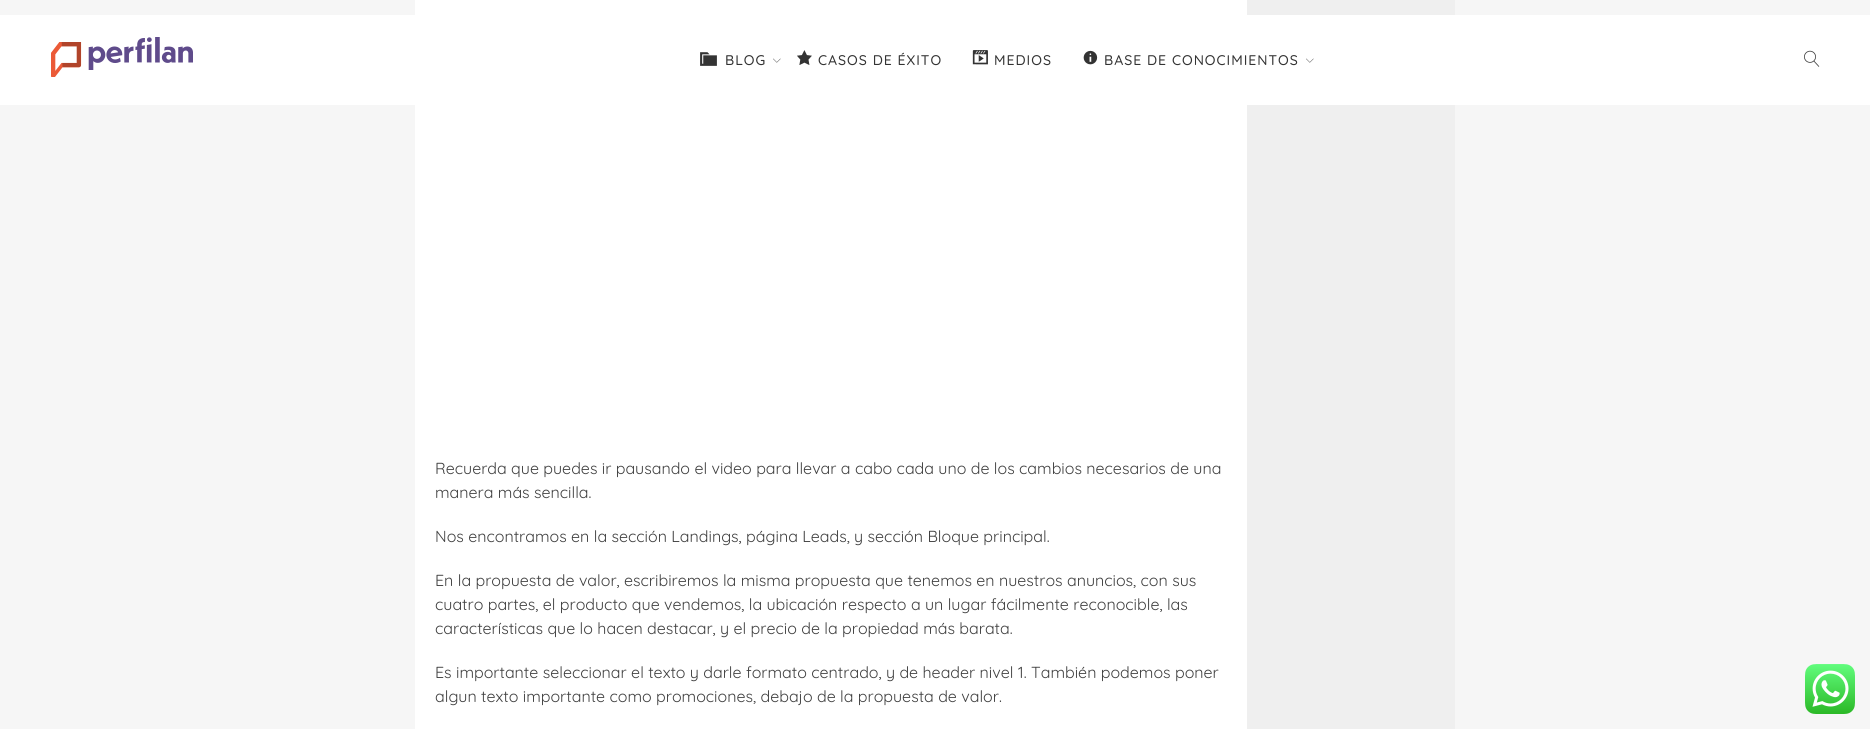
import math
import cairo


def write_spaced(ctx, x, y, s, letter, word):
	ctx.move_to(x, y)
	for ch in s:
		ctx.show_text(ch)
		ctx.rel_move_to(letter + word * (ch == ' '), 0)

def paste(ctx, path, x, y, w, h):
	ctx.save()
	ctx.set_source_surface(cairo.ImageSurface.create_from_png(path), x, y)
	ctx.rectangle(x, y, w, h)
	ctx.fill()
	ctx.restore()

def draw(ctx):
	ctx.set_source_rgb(0.961, 0.961, 0.961)
	ctx.paint()
	ctx.set_source_rgb(1, 1, 1)
	ctx.rectangle(415, 0, 832, 729)
	ctx.fill()
	ctx.set_source_rgb(0.937, 0.937, 0.937)
	ctx.rectangle(1247, 0, 208, 729)
	ctx.fill()
	ctx.set_source_rgb(1, 1, 1)
	ctx.rectangle(0, 15, 1870, 90)
	ctx.fill()
	paste(ctx, 'media/1.png', 51, 37, 142, 40)
	paste(ctx, 'media/2.png', 700, 52, 17, 14)
	ctx.select_font_face('Quicksand Medium')
	ctx.set_font_size(14)
	ctx.set_source_rgb(0.2, 0.2, 0.2)
	write_spaced(ctx, 725, 65, 'BLOG', 1, 0)
	paste(ctx, 'media/3.png', 773, 58, 8, 5)
	paste(ctx, 'media/4.png', 797, 50, 15, 15)
	write_spaced(ctx, 818, 65, 'CASOS DE ÉXITO', 1, 0)
	paste(ctx, 'media/5.png', 972, 50, 16, 15)
	write_spaced(ctx, 994, 65, 'MEDIOS', 1, 0)
	paste(ctx, 'media/6.png', 1083, 50, 15, 15)
	write_spaced(ctx, 1104, 65, 'BASE DE CONOCIMIENTOS', 1, 0)
	paste(ctx, 'media/3.png', 1306, 58, 8, 5)
	paste(ctx, 'media/7.png', 1804, 50, 16, 17)
	ctx.select_font_face('Quicksand')
	ctx.set_font_size(16)
	ctx.set_source_rgb(0.251, 0.251, 0.251)
	for x, y, s in [
		(435, 474, 'Recuerda que puedes ir pausando el video para llevar a cabo cada uno de los cambios necesarios de una'),
		(435, 498, 'manera más sencilla.'),
		(435, 542, 'Nos encontramos en la sección Landings, página Leads, y sección Bloque principal.'),
		(435, 586, 'En la propuesta de valor, escribiremos la misma propuesta que tenemos en nuestros anuncios, con sus'),
		(435, 610, 'cuatro partes, el producto que vendemos, la ubicación respecto a un lugar fácilmente reconocible, las'),
		(435, 634, 'características que lo hacen destacar, y el precio de la propiedad más barata.'),
		(435, 678, 'Es importante seleccionar el texto y darle formato centrado, y de header nivel 1. También podemos poner'),
		(435, 702, 'algun texto importante como promociones, debajo de la propuesta de valor.'),
	]:
		ctx.move_to(x, y)
		ctx.show_text(s)
	paste(ctx, 'media/8.png', 1805, 664, 50, 50)


surface = cairo.ImageSurface(cairo.FORMAT_RGB24, 1870, 729)
ctx = cairo.Context(surface)
options = cairo.FontOptions()
options.set_hint_metrics(cairo.HINT_METRICS_OFF)
options.set_hint_style(cairo.HINT_STYLE_NONE)
ctx.set_font_options(options)
ctx.set_miter_limit(4)
draw(ctx)
surface.write_to_png('image.png')
